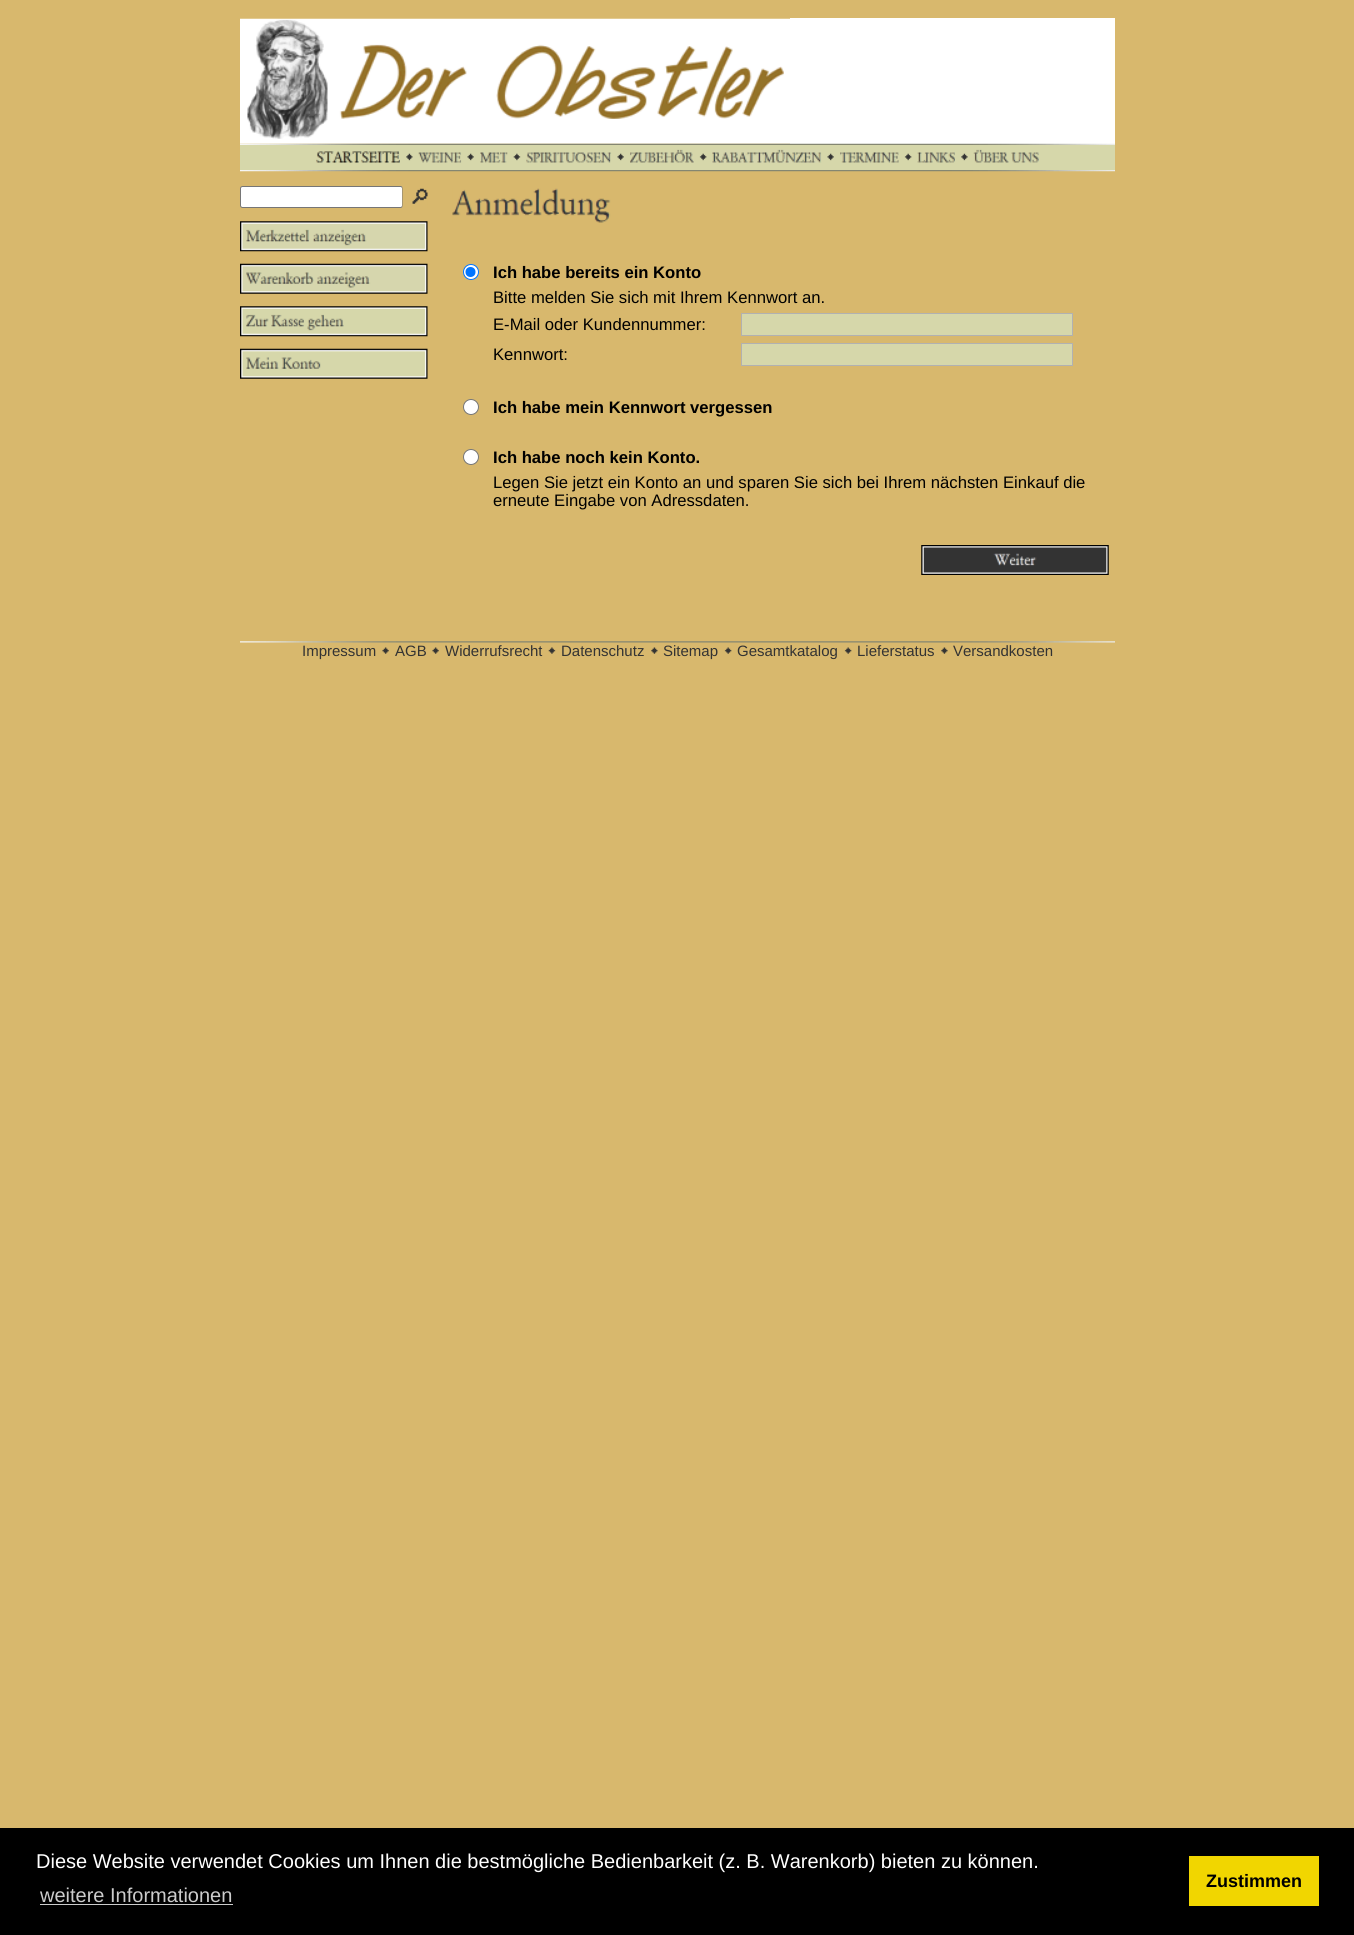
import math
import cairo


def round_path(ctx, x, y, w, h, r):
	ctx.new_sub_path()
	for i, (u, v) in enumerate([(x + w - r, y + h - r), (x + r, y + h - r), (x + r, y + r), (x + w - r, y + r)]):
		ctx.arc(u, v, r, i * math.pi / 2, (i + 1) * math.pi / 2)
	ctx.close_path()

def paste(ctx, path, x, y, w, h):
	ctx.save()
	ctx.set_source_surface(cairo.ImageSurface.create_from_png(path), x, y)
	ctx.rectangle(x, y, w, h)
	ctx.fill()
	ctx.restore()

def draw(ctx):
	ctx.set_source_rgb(0.847, 0.722, 0.427)
	ctx.paint()
	paste(ctx, 'media/1.png', 240, 18, 550, 126)
	ctx.set_source_rgb(1, 1, 1)
	ctx.rectangle(790, 18, 325, 126)
	ctx.fill()
	paste(ctx, 'media/2.png', 240, 143, 875, 2)
	ctx.set_source_rgb(0.839, 0.843, 0.667)
	ctx.rectangle(240, 145, 875, 25)
	ctx.fill()
	paste(ctx, 'media/3.png', 316, 151, 84, 12)
	paste(ctx, 'media/4.png', 406, 153, 7, 8)
	paste(ctx, 'media/5.png', 418, 152, 44, 11)
	paste(ctx, 'media/6.png', 461, 152, 13, 11)
	paste(ctx, 'media/7.png', 480, 152, 28, 11)
	paste(ctx, 'media/8.png', 507, 152, 14, 9)
	paste(ctx, 'media/9.png', 526, 152, 86, 11)
	paste(ctx, 'media/10.png', 611, 152, 13, 9)
	paste(ctx, 'media/11.png', 630, 149, 64, 14)
	paste(ctx, 'media/12.png', 693, 153, 14, 10)
	paste(ctx, 'media/13.png', 712, 149, 110, 14)
	paste(ctx, 'media/14.png', 821, 152, 13, 10)
	paste(ctx, 'media/15.png', 840, 152, 59, 11)
	paste(ctx, 'media/16.png', 898, 152, 14, 11)
	paste(ctx, 'media/17.png', 917, 152, 38, 11)
	paste(ctx, 'media/18.png', 961, 153, 7, 8)
	paste(ctx, 'media/19.png', 973, 149, 66, 14)
	paste(ctx, 'media/20.png', 240, 170, 875, 2)
	ctx.set_source_rgb(1, 1, 1)
	round_path(ctx, 240.5, 186.5, 162, 21, 2)
	ctx.fill_preserve()
	ctx.set_source_rgb(0.463, 0.463, 0.463)
	ctx.set_line_width(1)
	ctx.stroke()
	paste(ctx, 'media/21.png', 402, 186, 26, 22)
	paste(ctx, 'media/22.png', 240, 221, 188, 31)
	paste(ctx, 'media/23.png', 240, 263, 188, 31)
	paste(ctx, 'media/24.png', 240, 306, 188, 31)
	paste(ctx, 'media/25.png', 240, 348, 188, 31)
	paste(ctx, 'media/26.png', 452, 188, 159, 35)
	ctx.set_source_rgb(1, 1, 1)
	ctx.arc(471, 272, 7.5, 0, 2 * math.pi)
	ctx.fill_preserve()
	ctx.set_source_rgb(0, 0.459, 1)
	ctx.stroke()
	ctx.arc(470.5, 272, 5, 0, 2 * math.pi)
	ctx.fill()
	ctx.select_font_face('Liberation Sans', cairo.FONT_SLANT_NORMAL, cairo.FONT_WEIGHT_BOLD)
	ctx.set_font_size(16.65)
	ctx.set_source_rgb(0, 0, 0)
	ctx.move_to(493, 278)
	ctx.show_text('Ich habe bereits ein Konto')
	ctx.select_font_face('Liberation Sans')
	ctx.move_to(493, 303)
	ctx.show_text('Bitte melden Sie sich mit Ihrem Kennwort an.')
	ctx.move_to(493, 330)
	ctx.show_text('E-Mail oder Kundennummer:')
	ctx.set_source_rgb(0.839, 0.843, 0.667)
	ctx.rectangle(741.5, 313.5, 331, 22)
	ctx.fill_preserve()
	ctx.set_source_rgb(0.694, 0.694, 0.694)
	ctx.stroke()
	ctx.set_source_rgb(0, 0, 0)
	ctx.move_to(493, 360)
	ctx.show_text('Kennwort:')
	ctx.set_source_rgb(0.839, 0.843, 0.667)
	ctx.rectangle(741.5, 343.5, 331, 22)
	ctx.fill_preserve()
	ctx.set_source_rgb(0.694, 0.694, 0.694)
	ctx.stroke()
	ctx.set_source_rgb(1, 1, 1)
	ctx.arc(471, 407, 7.5, 0, 2 * math.pi)
	ctx.fill_preserve()
	ctx.set_source_rgb(0.463, 0.463, 0.463)
	ctx.stroke()
	ctx.select_font_face('Liberation Sans', cairo.FONT_SLANT_NORMAL, cairo.FONT_WEIGHT_BOLD)
	ctx.set_source_rgb(0, 0, 0)
	ctx.move_to(493, 413)
	ctx.show_text('Ich habe mein Kennwort vergessen')
	ctx.set_source_rgb(1, 1, 1)
	ctx.new_path()
	ctx.arc(471, 457, 7.5, 0, 2 * math.pi)
	ctx.fill_preserve()
	ctx.set_source_rgb(0.463, 0.463, 0.463)
	ctx.stroke()
	ctx.set_source_rgb(0, 0, 0)
	ctx.move_to(493, 463)
	ctx.show_text('Ich habe noch kein Konto.')
	ctx.select_font_face('Liberation Sans')
	ctx.move_to(493, 488)
	ctx.show_text('Legen Sie jetzt ein Konto an und sparen Sie sich bei Ihrem nächsten Einkauf die')
	ctx.move_to(493, 506)
	ctx.show_text('erneute Eingabe von Adressdaten.')
	paste(ctx, 'media/27.png', 921, 545, 188, 30)
	paste(ctx, 'media/28.png', 240, 641, 875, 2)
	ctx.set_font_size(15)
	ctx.set_source_rgb(0.2, 0.2, 0.2)
	ctx.move_to(302, 656)
	ctx.show_text('Impressum')
	paste(ctx, 'media/29.png', 382, 647, 7, 7)
	ctx.move_to(395, 656)
	ctx.show_text('AGB')
	paste(ctx, 'media/29.png', 432, 647, 7, 7)
	ctx.move_to(445, 656)
	ctx.show_text('Widerrufsrecht')
	paste(ctx, 'media/30.png', 542, 647, 14, 9)
	ctx.move_to(561, 656)
	ctx.show_text('Datenschutz')
	paste(ctx, 'media/31.png', 651, 647, 7, 7)
	ctx.move_to(663, 656)
	ctx.show_text('Sitemap')
	paste(ctx, 'media/32.png', 724, 647, 8, 7)
	ctx.move_to(737, 656)
	ctx.show_text('Gesamtkatalog')
	paste(ctx, 'media/32.png', 844, 647, 8, 7)
	ctx.move_to(857, 656)
	ctx.show_text('Lieferstatus')
	paste(ctx, 'media/33.png', 941, 647, 7, 7)
	ctx.move_to(953, 656)
	ctx.show_text('Versandkosten')
	ctx.set_source_rgb(0, 0, 0)
	ctx.rectangle(0, 1828, 1354, 107)
	ctx.fill()
	ctx.set_font_size(20)
	ctx.set_source_rgb(1, 1, 1)
	ctx.move_to(36, 1868)
	ctx.show_text('Diese Website verwendet Cookies um Ihnen die bestmögliche Bedienbarkeit (z. B. Warenkorb) bieten zu können.')
	ctx.set_source_rgb(0.8, 0.8, 0.8)
	ctx.move_to(40, 1902)
	ctx.show_text('weitere Informationen')
	ctx.rectangle(40, 1904, 193, 1)
	ctx.fill()
	ctx.set_source_rgb(0.945, 0.839, 0)
	ctx.rectangle(1189, 1856, 130, 50)
	ctx.fill()
	ctx.select_font_face('Liberation Sans', cairo.FONT_SLANT_NORMAL, cairo.FONT_WEIGHT_BOLD)
	ctx.set_font_size(18)
	ctx.set_source_rgb(0, 0, 0)
	ctx.move_to(1206, 1887)
	ctx.show_text('Zustimmen')


surface = cairo.ImageSurface(cairo.FORMAT_RGB24, 1354, 1935)
ctx = cairo.Context(surface)
options = cairo.FontOptions()
options.set_hint_metrics(cairo.HINT_METRICS_OFF)
options.set_hint_style(cairo.HINT_STYLE_NONE)
ctx.set_font_options(options)
ctx.set_miter_limit(4)
draw(ctx)
surface.write_to_png('image.png')
